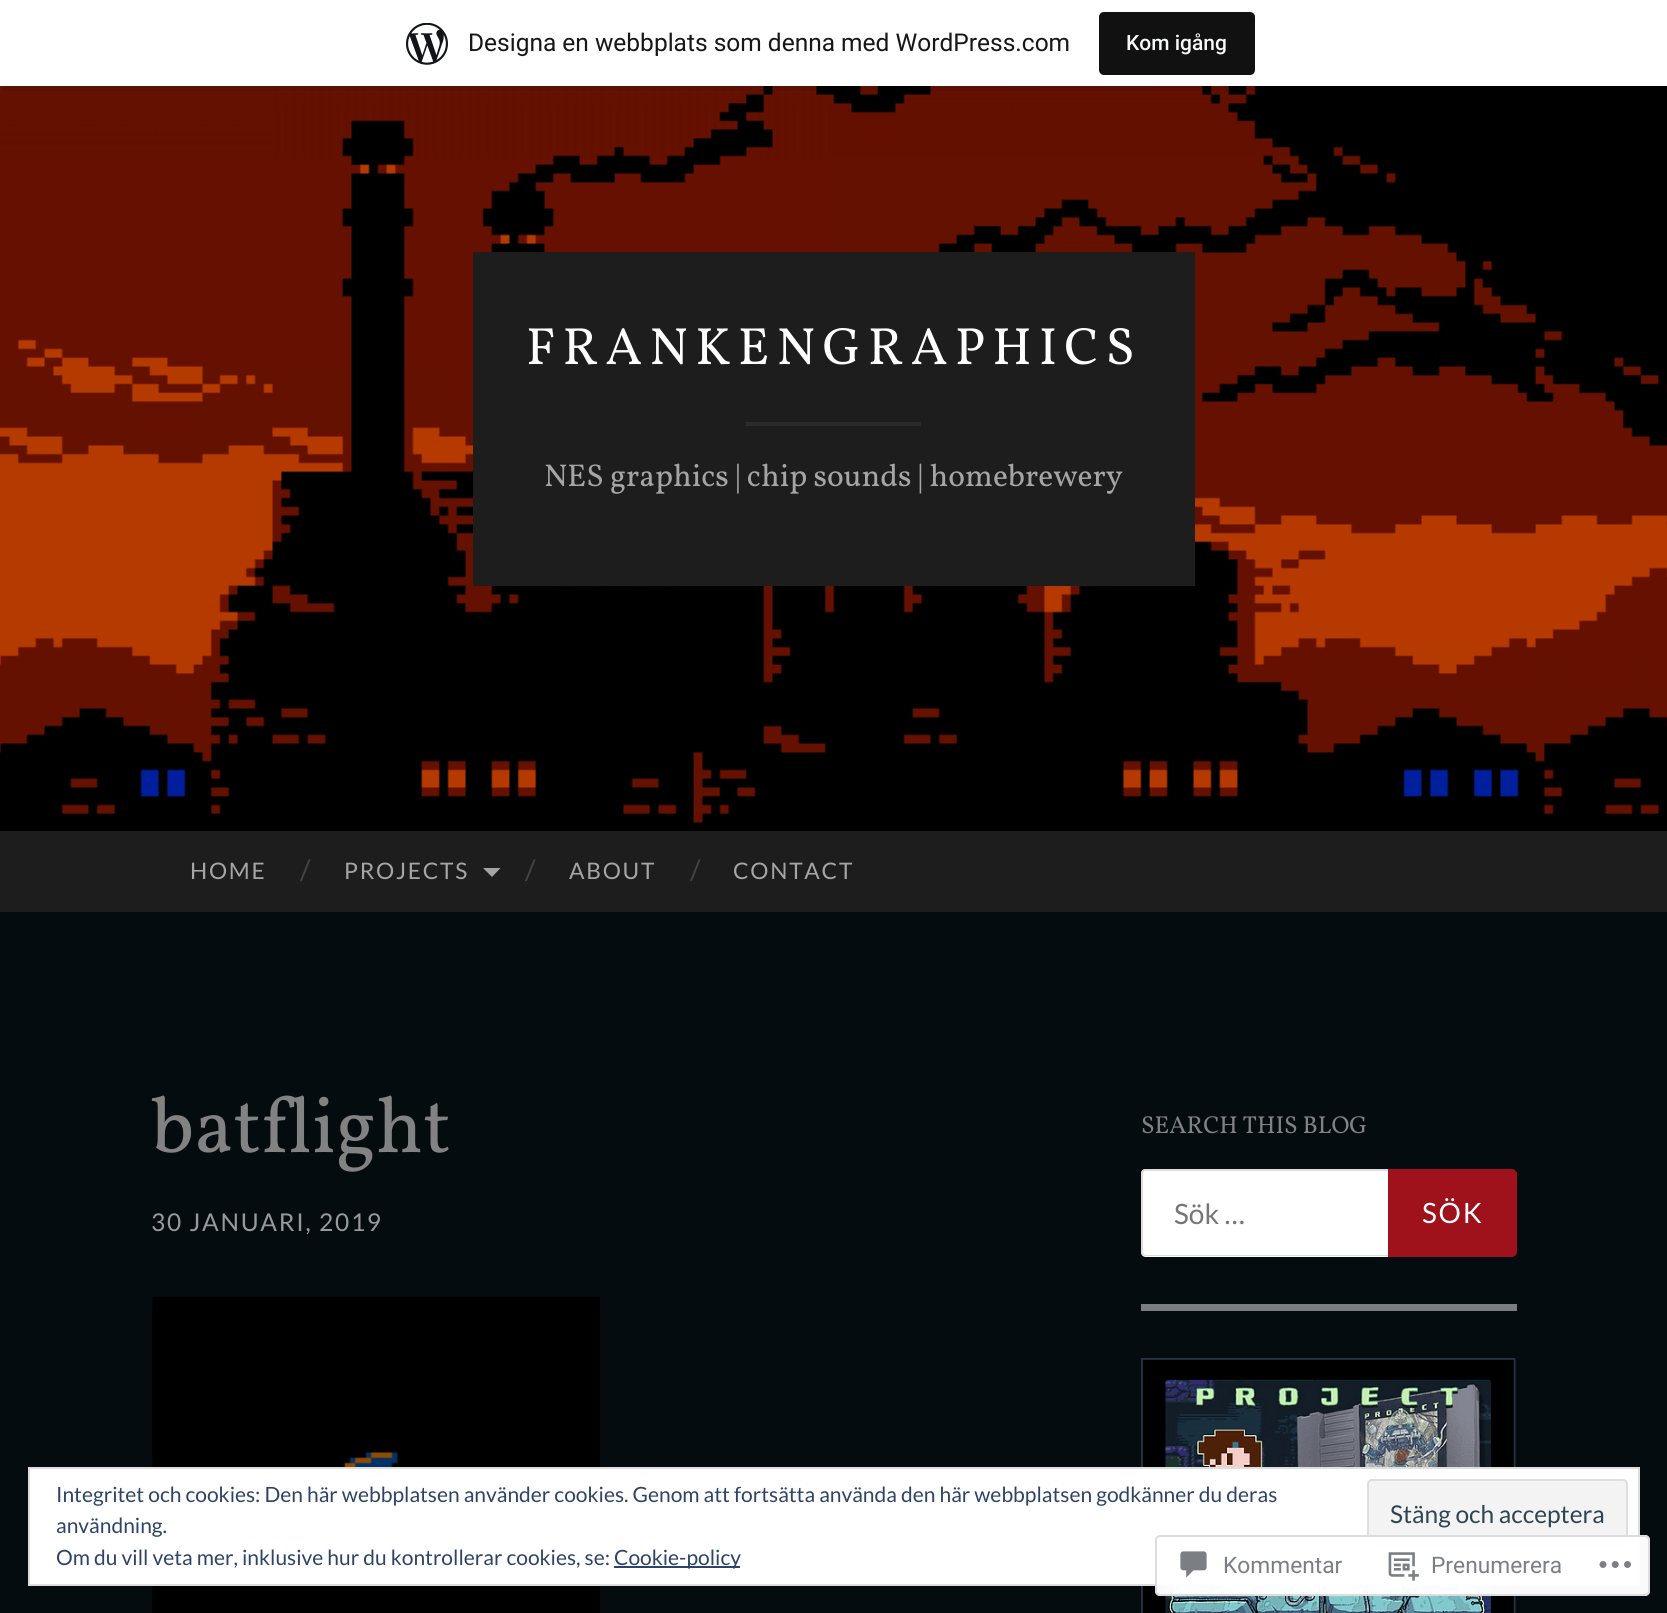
import math
import cairo


def write_spaced(ctx, x, y, s, letter, word):
	ctx.move_to(x, y)
	for ch in s:
		ctx.show_text(ch)
		ctx.rel_move_to(letter + word * (ch == ' '), 0)

def round_path(ctx, x, y, w, h, r):
	ctx.new_sub_path()
	for i, (u, v) in enumerate([(x + w - r, y + h - r), (x + r, y + h - r), (x + r, y + r), (x + w - r, y + r)]):
		ctx.arc(u, v, r, i * math.pi / 2, (i + 1) * math.pi / 2)
	ctx.close_path()

def paste(ctx, path, x, y, w, h):
	ctx.save()
	ctx.set_source_surface(cairo.ImageSurface.create_from_png(path), x, y)
	ctx.rectangle(x, y, w, h)
	ctx.fill()
	ctx.restore()

def draw(ctx):
	ctx.set_source_rgb(0.02, 0.047, 0.059)
	ctx.paint()
	paste(ctx, 'media/2.png', 0, 86, 1667, 745)
	ctx.set_source_rgba(0, 0, 0, 0.08)
	ctx.new_path()
	ctx.move_to(2, 86)
	ctx.line_to(2, 91)
	ctx.line_to(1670, 91)
	ctx.line_to(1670, 5)
	ctx.line_to(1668, 5)
	ctx.line_to(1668, 86)
	ctx.close_path()
	ctx.fill()
	ctx.set_source_rgb(1, 1, 1)
	ctx.rectangle(0, 0, 1667, 86)
	ctx.fill()
	paste(ctx, 'media/1.png', 406, 23, 42, 42)
	ctx.select_font_face('Roboto')
	ctx.set_font_size(24.5)
	ctx.set_source_rgb(0.09, 0.09, 0.09)
	ctx.move_to(468, 51)
	ctx.show_text('Designa en webbplats som denna med WordPress.com')
	ctx.set_source_rgb(0.067, 0.067, 0.067)
	round_path(ctx, 1099, 12, 156, 63, 5)
	ctx.fill()
	ctx.select_font_face('Roboto Medium')
	ctx.set_font_size(21)
	ctx.set_source_rgb(0.965, 0.969, 0.969)
	ctx.move_to(1126, 50)
	ctx.show_text('Kom igång')
	ctx.set_source_rgb(0.114, 0.114, 0.114)
	ctx.rectangle(473, 252, 722, 334)
	ctx.fill()
	ctx.select_font_face('Vollkorn')
	ctx.set_font_size(52.5)
	ctx.set_source_rgb(1, 1, 1)
	write_spaced(ctx, 526, 364, 'FRANKENGRAPHICS', 7, 0)
	ctx.set_source_rgb(0.169, 0.169, 0.169)
	ctx.rectangle(746, 422, 175, 4)
	ctx.fill()
	ctx.set_font_size(31.5)
	ctx.set_source_rgb(0.647, 0.647, 0.647)
	ctx.move_to(544, 486)
	ctx.show_text('NES graphics | chip sounds | homebrewery')
	ctx.set_source_rgb(0.114, 0.114, 0.114)
	ctx.rectangle(0, 831, 1667, 81)
	ctx.fill()
	ctx.select_font_face('Lato')
	ctx.set_font_size(22.75)
	ctx.set_source_rgb(0.647, 0.647, 0.647)
	write_spaced(ctx, 190, 879, 'HOME', 1.75, 0)
	ctx.set_font_size(28)
	ctx.set_source_rgb(0.267, 0.267, 0.267)
	ctx.move_to(300, 880)
	ctx.show_text('/')
	ctx.set_font_size(22.75)
	ctx.set_source_rgb(0.647, 0.647, 0.647)
	write_spaced(ctx, 344, 879, 'PROJECTS', 1.75, 0)
	ctx.new_path()
	ctx.move_to(483, 868)
	ctx.line_to(500.5, 868)
	ctx.line_to(492, 877)
	ctx.close_path()
	ctx.fill()
	ctx.set_font_size(28)
	ctx.set_source_rgb(0.267, 0.267, 0.267)
	ctx.move_to(525, 880)
	ctx.show_text('/')
	ctx.set_font_size(22.75)
	ctx.set_source_rgb(0.647, 0.647, 0.647)
	write_spaced(ctx, 569, 879, 'ABOUT', 1.75, 0)
	ctx.set_font_size(28)
	ctx.set_source_rgb(0.267, 0.267, 0.267)
	ctx.move_to(690, 880)
	ctx.show_text('/')
	ctx.set_font_size(22.75)
	ctx.set_source_rgb(0.647, 0.647, 0.647)
	write_spaced(ctx, 733, 879, 'CONTACT', 1.75, 0)
	ctx.select_font_face('Vollkorn')
	ctx.set_font_size(79)
	ctx.set_source_rgb(0.51, 0.51, 0.51)
	ctx.move_to(151, 1152)
	ctx.show_text('batflight')
	ctx.select_font_face('Lato')
	ctx.set_font_size(24.5)
	ctx.set_source_rgb(0.6, 0.6, 0.6)
	write_spaced(ctx, 151, 1231, '30 JANUARI, 2019', 1.75, 0)
	paste(ctx, 'media/3.png', 152, 1297, 448, 316)
	ctx.set_source_rgb(0.478, 0.49, 0.498)
	ctx.rectangle(1141, 1304, 376, 7)
	ctx.fill()
	ctx.select_font_face('Vollkorn')
	ctx.set_source_rgb(0.51, 0.51, 0.51)
	ctx.move_to(1141, 1133)
	ctx.show_text('SEARCH THIS BLOG')
	ctx.set_source_rgb(1, 1, 1)
	ctx.new_path()
	ctx.move_to(1146, 1169)
	ctx.line_to(1512, 1169)
	ctx.line_to(1512, 1257)
	ctx.line_to(1146, 1257)
	ctx.curve_to(1143, 1257, 1141, 1255, 1141, 1252)
	ctx.line_to(1141, 1174)
	ctx.curve_to(1141, 1171, 1143, 1169, 1146, 1169)
	ctx.close_path()
	ctx.fill()
	ctx.set_source_rgb(0.867, 0.867, 0.867)
	ctx.set_fill_rule(cairo.FILL_RULE_EVEN_ODD)
	ctx.new_path()
	ctx.move_to(1146, 1169)
	ctx.line_to(1512, 1169)
	ctx.line_to(1512, 1256)
	ctx.line_to(1146, 1256)
	ctx.curve_to(1143, 1256, 1141, 1254, 1141, 1251)
	ctx.line_to(1141, 1174)
	ctx.curve_to(1141, 1171, 1143, 1169, 1146, 1169)
	ctx.close_path()
	ctx.move_to(1146, 1171)
	ctx.line_to(1512, 1171)
	ctx.line_to(1512, 1255)
	ctx.line_to(1146, 1255)
	ctx.curve_to(1144, 1255, 1143, 1253, 1143, 1251)
	ctx.line_to(1143, 1174)
	ctx.curve_to(1143, 1172, 1144, 1171, 1146, 1171)
	ctx.close_path()
	ctx.fill()
	ctx.select_font_face('Lato')
	ctx.set_font_size(28)
	ctx.set_source_rgb(0.459, 0.459, 0.459)
	ctx.move_to(1174, 1224)
	ctx.show_text('Sök …')
	ctx.set_source_rgb(0.624, 0.067, 0.106)
	ctx.new_path()
	ctx.move_to(1389, 1170)
	ctx.line_to(1512, 1170)
	ctx.curve_to(1514, 1170, 1516, 1172, 1516, 1174)
	ctx.line_to(1516, 1252)
	ctx.curve_to(1516, 1254, 1514, 1256, 1512, 1256)
	ctx.line_to(1389, 1256)
	ctx.close_path()
	ctx.fill_preserve()
	ctx.stroke()
	ctx.set_source_rgb(1, 1, 1)
	write_spaced(ctx, 1422, 1223, 'SÖK', 1.75, 0)
	paste(ctx, 'media/4.png', 1141, 1358, 375, 255)
	ctx.rectangle(29, 1468, 1610, 117)
	ctx.fill_preserve()
	ctx.set_source_rgb(0.871, 0.871, 0.871)
	ctx.stroke()
	ctx.set_font_size(21)
	ctx.set_source_rgb(0.18, 0.267, 0.404)
	ctx.move_to(56, 1502)
	ctx.show_text('Integritet och cookies: Den här webbplatsen använder cookies. Genom att fortsätta använda den här webbplatsen godkänner du deras')
	ctx.move_to(56, 1533)
	ctx.show_text('användning.')
	ctx.set_source_rgb(0.953, 0.953, 0.953)
	round_path(ctx, 1368, 1480, 259, 66, 4)
	ctx.fill_preserve()
	ctx.set_source_rgb(0.871, 0.871, 0.871)
	ctx.stroke()
	ctx.set_font_size(24.5)
	ctx.set_source_rgb(0.18, 0.267, 0.325)
	ctx.move_to(1390, 1523)
	ctx.show_text('Stäng och acceptera')
	ctx.set_font_size(21)
	ctx.set_source_rgb(0.18, 0.267, 0.404)
	ctx.move_to(56, 1565)
	ctx.show_text('Om du vill veta mer, inklusive hur du kontrollerar cookies, se:')
	ctx.rectangle(614, 1566, 126, 2)
	ctx.fill()
	ctx.move_to(614, 1565)
	ctx.show_text('Cookie-policy')
	ctx.set_source_rgba(1, 1, 1, 0.98)
	round_path(ctx, 1155, 1535, 495, 61, 5)
	ctx.fill()
	round_path(ctx, 1156, 1536, 493, 59, 4)
	ctx.set_source_rgba(0.863, 0.863, 0.871, 0.98)
	ctx.stroke()
	paste(ctx, 'media/5.png', 1180, 1551, 27, 27)
	ctx.select_font_face('Roboto')
	ctx.set_font_size(22.75)
	ctx.set_source_rgb(0.482, 0.498, 0.522)
	ctx.move_to(1223, 1573)
	ctx.show_text('Kommentar')
	paste(ctx, 'media/6.png', 1388, 1552, 31, 29)
	ctx.move_to(1431, 1573)
	ctx.show_text('Prenumerera')
	paste(ctx, 'media/7.png', 1599, 1561, 32, 7)


surface = cairo.ImageSurface(cairo.FORMAT_RGB24, 1667, 1613)
ctx = cairo.Context(surface)
options = cairo.FontOptions()
options.set_hint_metrics(cairo.HINT_METRICS_OFF)
options.set_hint_style(cairo.HINT_STYLE_NONE)
ctx.set_font_options(options)
ctx.set_miter_limit(4)
draw(ctx)
surface.write_to_png('image.png')
